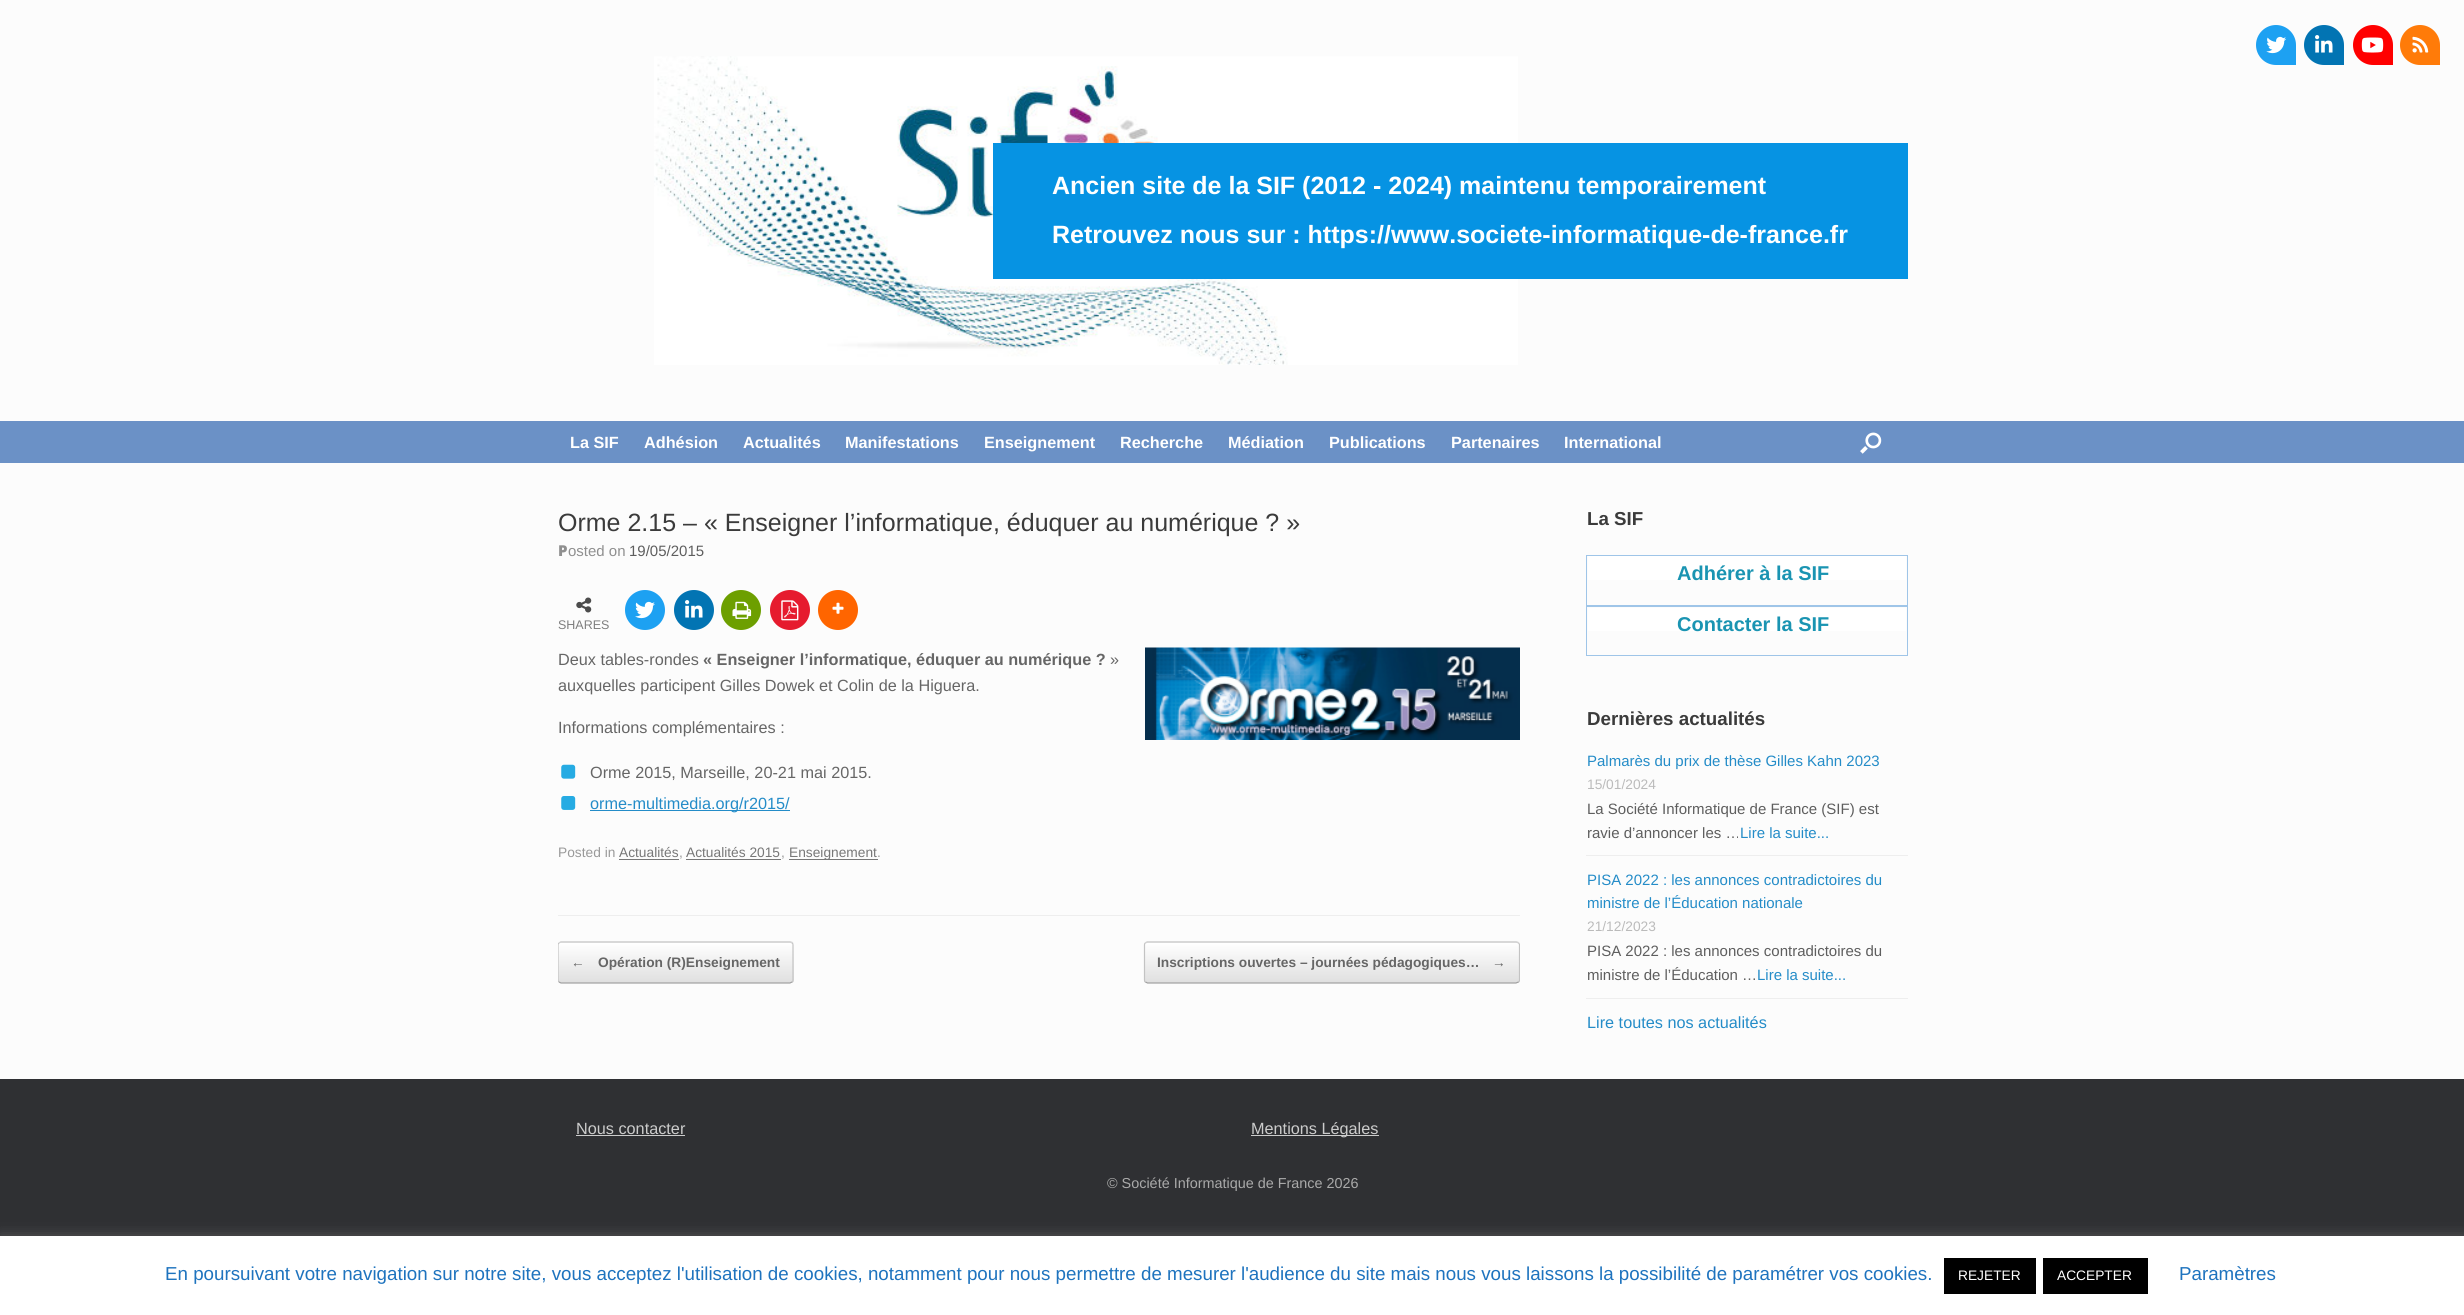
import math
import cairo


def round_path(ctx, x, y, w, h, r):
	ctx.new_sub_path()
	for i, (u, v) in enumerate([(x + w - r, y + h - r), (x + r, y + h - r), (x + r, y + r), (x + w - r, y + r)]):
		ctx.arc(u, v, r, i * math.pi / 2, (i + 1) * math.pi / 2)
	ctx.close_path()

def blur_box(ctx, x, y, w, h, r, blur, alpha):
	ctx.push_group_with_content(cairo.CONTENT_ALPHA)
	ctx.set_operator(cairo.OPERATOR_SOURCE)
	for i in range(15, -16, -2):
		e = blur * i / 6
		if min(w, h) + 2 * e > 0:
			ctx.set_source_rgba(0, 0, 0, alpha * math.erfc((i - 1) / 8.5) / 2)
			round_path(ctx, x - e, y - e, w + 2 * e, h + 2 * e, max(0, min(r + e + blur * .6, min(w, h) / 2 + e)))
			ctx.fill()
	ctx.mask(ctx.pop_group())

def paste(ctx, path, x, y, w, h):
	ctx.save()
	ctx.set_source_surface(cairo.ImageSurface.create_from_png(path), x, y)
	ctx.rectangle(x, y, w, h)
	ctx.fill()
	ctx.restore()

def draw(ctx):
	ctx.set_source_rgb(0.184, 0.188, 0.2)
	ctx.paint()
	ctx.set_source_rgb(0.988, 0.988, 0.988)
	ctx.rectangle(0, 0, 2464, 421)
	ctx.fill()
	ctx.set_source_rgb(0.114, 0.631, 0.949)
	ctx.new_path()
	ctx.move_to(2276, 25)
	ctx.curve_to(2287, 25, 2296, 34, 2296, 45)
	ctx.line_to(2296, 65)
	ctx.line_to(2276, 65)
	ctx.curve_to(2265, 65, 2256, 56, 2256, 45)
	ctx.curve_to(2256, 34, 2265, 25, 2276, 25)
	ctx.close_path()
	ctx.fill()
	paste(ctx, 'media/1.png', 2266, 36, 21, 18)
	ctx.set_source_rgb(0.008, 0.455, 0.702)
	ctx.new_path()
	ctx.move_to(2324, 25)
	ctx.curve_to(2335, 25, 2344, 34, 2344, 45)
	ctx.line_to(2344, 65)
	ctx.line_to(2324, 65)
	ctx.curve_to(2313, 65, 2304, 56, 2304, 45)
	ctx.curve_to(2304, 34, 2313, 25, 2324, 25)
	ctx.close_path()
	ctx.fill()
	paste(ctx, 'media/2.png', 2315, 35, 18, 18)
	ctx.set_source_rgb(1, 0, 0)
	ctx.new_path()
	ctx.move_to(2373, 25)
	ctx.curve_to(2384, 25, 2393, 34, 2393, 45)
	ctx.line_to(2393, 65)
	ctx.line_to(2373, 65)
	ctx.curve_to(2362, 65, 2353, 56, 2353, 45)
	ctx.curve_to(2353, 34, 2362, 25, 2373, 25)
	ctx.close_path()
	ctx.fill()
	paste(ctx, 'media/3.png', 2361, 37, 23, 16)
	ctx.set_source_rgb(1, 0.482, 0.039)
	ctx.new_path()
	ctx.move_to(2420, 25)
	ctx.curve_to(2431, 25, 2440, 34, 2440, 45)
	ctx.line_to(2440, 65)
	ctx.line_to(2420, 65)
	ctx.curve_to(2409, 65, 2400, 56, 2400, 45)
	ctx.curve_to(2400, 34, 2409, 25, 2420, 25)
	ctx.close_path()
	ctx.fill()
	paste(ctx, 'media/4.png', 2412, 36, 17, 17)
	paste(ctx, 'media/5.png', 654, 56, 864, 309)
	ctx.set_source_rgb(0.024, 0.576, 0.89)
	ctx.rectangle(993, 143, 915, 136)
	ctx.fill()
	ctx.select_font_face('Liberation Sans', cairo.FONT_SLANT_NORMAL, cairo.FONT_WEIGHT_BOLD)
	ctx.set_font_size(25)
	ctx.set_source_rgb(1, 1, 1)
	ctx.move_to(1052, 194)
	ctx.show_text('Ancien site de la SIF (2012 - 2024) maintenu temporairement')
	ctx.move_to(1052, 243)
	ctx.show_text('Retrouvez nous sur : https://www.societe-informatique-de-france.fr')
	ctx.set_source_rgb(0.42, 0.569, 0.776)
	ctx.rectangle(0, 421, 2464, 42)
	ctx.fill()
	ctx.set_font_size(16.25)
	ctx.set_source_rgb(1, 1, 1)
	for x, y, s in [
		(570, 448, 'La SIF'),
		(644, 448, 'Adhésion'),
		(743, 448, 'Actualités'),
		(845, 448, 'Manifestations'),
		(984, 448, 'Enseignement'),
		(1120, 448, 'Recherche'),
		(1228, 448, 'Médiation'),
		(1329, 448, 'Publications'),
		(1451, 448, 'Partenaires'),
		(1564, 448, 'International'),
	]:
		ctx.move_to(x, y)
		ctx.show_text(s)
	paste(ctx, 'media/6.png', 1860, 432, 22, 22)
	ctx.set_source_rgb(0.988, 0.988, 0.988)
	ctx.rectangle(0, 463, 2464, 616)
	ctx.fill()
	ctx.set_source_rgb(0.933, 0.933, 0.933)
	ctx.rectangle(558, 915, 962, 1)
	ctx.fill()
	ctx.select_font_face('Liberation Sans')
	ctx.set_font_size(25)
	ctx.set_source_rgb(0.231, 0.231, 0.231)
	ctx.move_to(558, 531)
	ctx.show_text('Orme 2.15 – « Enseigner l’informatique, éduquer au numérique ? »')
	ctx.select_font_face('Noto Sans Black')
	ctx.set_font_size(15)
	ctx.set_source_rgb(0.561, 0.561, 0.561)
	ctx.move_to(558, 556)
	ctx.show_text('P')
	ctx.select_font_face('Liberation Sans')
	ctx.move_to(568, 556)
	ctx.show_text('osted on')
	ctx.set_source_rgb(0.369, 0.369, 0.369)
	ctx.move_to(629, 556)
	ctx.show_text('19/05/2015')
	paste(ctx, 'media/7.png', 576, 597, 16, 16)
	ctx.set_font_size(12.5)
	ctx.set_source_rgb(0.494, 0.494, 0.494)
	ctx.move_to(558, 629)
	ctx.show_text('SHARES')
	ctx.set_source_rgb(0.114, 0.631, 0.949)
	ctx.new_path()
	ctx.arc(645, 610, 20, 0, 2 * math.pi)
	ctx.fill()
	paste(ctx, 'media/8.png', 635, 601, 20, 18)
	ctx.set_source_rgb(0.008, 0.455, 0.702)
	ctx.arc(694, 610, 20, 0, 2 * math.pi)
	ctx.fill()
	paste(ctx, 'media/2.png', 685, 600, 18, 18)
	ctx.set_source_rgb(0.427, 0.624, 0)
	ctx.arc(741, 610, 20, 0, 2 * math.pi)
	ctx.fill()
	paste(ctx, 'media/9.png', 732, 601, 20, 18)
	ctx.set_source_rgb(0.902, 0.106, 0.18)
	ctx.arc(790, 610, 20, 0, 2 * math.pi)
	ctx.fill()
	paste(ctx, 'media/10.png', 781, 600, 18, 21)
	ctx.set_source_rgb(1, 0.396, 0)
	ctx.arc(838, 610, 20, 0, 2 * math.pi)
	ctx.fill()
	paste(ctx, 'media/11.png', 832, 602, 12, 12)
	ctx.set_font_size(16.25)
	ctx.set_source_rgb(0.4, 0.4, 0.4)
	ctx.move_to(558, 665)
	ctx.show_text('Deux tables-rondes')
	ctx.select_font_face('Liberation Sans', cairo.FONT_SLANT_NORMAL, cairo.FONT_WEIGHT_BOLD)
	ctx.move_to(703, 665)
	ctx.show_text('« Enseigner l’informatique, éduquer au numérique ?')
	ctx.select_font_face('Liberation Sans')
	ctx.move_to(1110, 665)
	ctx.show_text('»')
	paste(ctx, 'media/12.png', 1145, 647, 375, 93)
	ctx.move_to(558, 691)
	ctx.show_text('auxquelles participent Gilles Dowek et Colin de la Higuera.')
	ctx.move_to(558, 733)
	ctx.show_text('Informations complémentaires :')
	paste(ctx, 'media/13.png', 561, 764, 15, 15)
	ctx.move_to(590, 778)
	ctx.show_text('Orme 2015, Marseille, 20-21 mai 2015.')
	paste(ctx, 'media/14.png', 561, 796, 15, 14)
	ctx.set_source_rgb(0.141, 0.549, 0.784)
	ctx.rectangle(590, 810, 200, 1)
	ctx.fill()
	ctx.move_to(590, 809)
	ctx.show_text('orme-multimedia.org/r2015/')
	ctx.set_font_size(13.75)
	ctx.set_source_rgb(0.6, 0.6, 0.6)
	ctx.move_to(558, 857)
	ctx.show_text('Posted in')
	ctx.set_source_rgb(0.467, 0.467, 0.467)
	ctx.move_to(619, 857)
	ctx.show_text('Actualités')
	ctx.rectangle(619, 859, 60, 1)
	ctx.fill()
	ctx.set_source_rgb(0.6, 0.6, 0.6)
	ctx.move_to(679, 857)
	ctx.show_text(',')
	ctx.set_source_rgb(0.467, 0.467, 0.467)
	ctx.move_to(686, 857)
	ctx.show_text('Actualités 2015')
	ctx.rectangle(686, 859, 95, 1)
	ctx.fill()
	ctx.set_source_rgb(0.6, 0.6, 0.6)
	ctx.move_to(781, 857)
	ctx.show_text(',')
	ctx.set_source_rgb(0.467, 0.467, 0.467)
	ctx.rectangle(789, 859, 89, 1)
	ctx.fill()
	ctx.move_to(789, 857)
	ctx.show_text('Enseignement')
	ctx.set_source_rgb(0.6, 0.6, 0.6)
	ctx.move_to(877, 857)
	ctx.show_text('.')
	ctx.save()
	round_path(ctx, 558, 941, 236, 43, 4)
	ctx.clip()
	gradient = cairo.LinearGradient(559, 943, 559, 903)
	gradient.add_color_stop_rgba(0, 0.875, 0.875, 0.875, 1)
	gradient.add_color_stop_rgba(1, 1, 1, 1, 1)
	ctx.set_source(gradient)
	ctx.rectangle(558, 941, 236, 2)
	ctx.fill()
	gradient = cairo.LinearGradient(559, 983, 559, 943)
	gradient.add_color_stop_rgba(0, 0.875, 0.875, 0.875, 1)
	gradient.add_color_stop_rgba(1, 1, 1, 1, 1)
	ctx.set_source(gradient)
	ctx.rectangle(558, 943, 236, 40)
	ctx.fill()
	gradient = cairo.LinearGradient(559, 1023, 559, 983)
	gradient.add_color_stop_rgba(0, 0.875, 0.875, 0.875, 1)
	gradient.add_color_stop_rgba(1, 1, 1, 1, 1)
	ctx.set_source(gradient)
	ctx.rectangle(558, 983, 236, 1)
	ctx.fill()
	ctx.restore()
	ctx.new_path()
	ctx.move_to(559, 943)
	ctx.line_to(561, 942)
	ctx.line_to(790, 942)
	ctx.line_to(792, 943)
	ctx.set_source_rgb(0.824, 0.824, 0.824)
	ctx.set_line_width(1.2)
	ctx.stroke()
	ctx.new_path()
	ctx.move_to(792, 943)
	ctx.curve_to(793, 943.5, 793, 944, 793, 945)
	ctx.line_to(793, 980)
	ctx.curve_to(793, 981, 793, 981.5, 792, 982)
	ctx.set_source_rgb(0.765, 0.765, 0.765)
	ctx.stroke()
	ctx.new_path()
	ctx.move_to(792, 982)
	ctx.line_to(790, 983)
	ctx.line_to(561, 983)
	ctx.line_to(559, 982)
	ctx.set_source_rgb(0.624, 0.624, 0.624)
	ctx.stroke()
	ctx.save()
	ctx.rectangle(558, 941, 962, 43)
	ctx.clip()
	ctx.new_path()
	ctx.move_to(559, 982)
	ctx.curve_to(558.5, 981.5, 558, 981, 558, 980)
	ctx.line_to(558, 945)
	ctx.curve_to(558, 944, 558.5, 943.5, 559, 943)
	ctx.set_source_rgb(0.765, 0.765, 0.765)
	ctx.stroke()
	ctx.restore()
	ctx.select_font_face('Liberation Sans', cairo.FONT_SLANT_NORMAL, cairo.FONT_WEIGHT_BOLD)
	ctx.set_source_rgb(0.4, 0.4, 0.4)
	ctx.move_to(571, 967)
	ctx.show_text('←')
	ctx.move_to(598, 967)
	ctx.show_text('Opération (R)Enseignement')
	ctx.save()
	round_path(ctx, 1144, 941, 376, 43, 4)
	ctx.clip()
	gradient = cairo.LinearGradient(1145, 943, 1145, 903)
	gradient.add_color_stop_rgba(0, 0.875, 0.875, 0.875, 1)
	gradient.add_color_stop_rgba(1, 1, 1, 1, 1)
	ctx.set_source(gradient)
	ctx.rectangle(1144, 941, 376, 2)
	ctx.fill()
	gradient = cairo.LinearGradient(1145, 983, 1145, 943)
	gradient.add_color_stop_rgba(0, 0.875, 0.875, 0.875, 1)
	gradient.add_color_stop_rgba(1, 1, 1, 1, 1)
	ctx.set_source(gradient)
	ctx.rectangle(1144, 943, 376, 40)
	ctx.fill()
	gradient = cairo.LinearGradient(1145, 1023, 1145, 983)
	gradient.add_color_stop_rgba(0, 0.875, 0.875, 0.875, 1)
	gradient.add_color_stop_rgba(1, 1, 1, 1, 1)
	ctx.set_source(gradient)
	ctx.rectangle(1144, 983, 376, 1)
	ctx.fill()
	ctx.restore()
	ctx.new_path()
	ctx.move_to(1145.5, 943)
	ctx.line_to(1147.5, 942)
	ctx.line_to(1516, 942)
	ctx.line_to(1518.5, 943)
	ctx.set_source_rgb(0.824, 0.824, 0.824)
	ctx.stroke()
	ctx.save()
	ctx.rectangle(558, 941, 962, 43)
	ctx.clip()
	ctx.new_path()
	ctx.move_to(1518.5, 943)
	ctx.curve_to(1519, 943.5, 1519.5, 944, 1519.5, 945)
	ctx.line_to(1519.5, 980)
	ctx.curve_to(1519.5, 981, 1519, 981.5, 1518.5, 982)
	ctx.set_source_rgb(0.765, 0.765, 0.765)
	ctx.stroke()
	ctx.restore()
	ctx.new_path()
	ctx.move_to(1518.5, 982)
	ctx.line_to(1516, 983)
	ctx.line_to(1147.5, 983)
	ctx.line_to(1145.5, 982)
	ctx.set_source_rgb(0.624, 0.624, 0.624)
	ctx.stroke()
	ctx.new_path()
	ctx.move_to(1145.5, 982)
	ctx.curve_to(1144.5, 981.5, 1144.5, 981, 1144.5, 980)
	ctx.line_to(1144.5, 945)
	ctx.curve_to(1144.5, 944, 1144.5, 943.5, 1145.5, 943)
	ctx.set_source_rgb(0.765, 0.765, 0.765)
	ctx.stroke()
	ctx.set_source_rgb(0.4, 0.4, 0.4)
	ctx.move_to(1157, 967)
	ctx.show_text('Inscriptions ouvertes – journées pédagogiques…')
	ctx.move_to(1492, 967)
	ctx.show_text('→')
	ctx.set_font_size(18.75)
	ctx.set_source_rgb(0.231, 0.231, 0.231)
	ctx.move_to(1587, 525)
	ctx.show_text('La SIF')
	ctx.rectangle(1586.5, 555.5, 321, 50)
	ctx.set_source_rgb(0.624, 0.773, 0.91)
	ctx.set_line_width(1)
	ctx.stroke()
	ctx.set_source_rgb(1, 1, 1)
	ctx.rectangle(1588, 556, 318, 24)
	ctx.fill()
	ctx.set_font_size(20)
	ctx.set_source_rgb(0.102, 0.58, 0.698)
	ctx.move_to(1677, 580)
	ctx.show_text('Adhérer à la SIF')
	ctx.rectangle(1586.5, 606.5, 321, 49)
	ctx.set_source_rgb(0.624, 0.773, 0.91)
	ctx.stroke()
	ctx.set_source_rgb(1, 1, 1)
	ctx.rectangle(1588, 608, 318, 23)
	ctx.fill()
	ctx.set_source_rgb(0.102, 0.58, 0.698)
	ctx.move_to(1677, 631)
	ctx.show_text('Contacter la SIF')
	ctx.set_font_size(18.75)
	ctx.set_source_rgb(0.231, 0.231, 0.231)
	ctx.move_to(1587, 725)
	ctx.show_text('Dernières actualités')
	ctx.set_source_rgb(0.933, 0.933, 0.933)
	ctx.rectangle(1586, 855, 322, 1)
	ctx.fill()
	ctx.select_font_face('Liberation Sans')
	ctx.set_font_size(15)
	ctx.set_source_rgb(0.141, 0.549, 0.784)
	ctx.move_to(1587, 766)
	ctx.show_text('Palmarès du prix de thèse Gilles Kahn 2023')
	ctx.set_font_size(13.75)
	ctx.set_source_rgb(0.733, 0.733, 0.733)
	ctx.move_to(1587, 789)
	ctx.show_text('15/01/2024')
	ctx.set_font_size(15)
	ctx.set_source_rgb(0.369, 0.369, 0.369)
	ctx.move_to(1587, 814)
	ctx.show_text('La Société Informatique de France (SIF) est')
	ctx.move_to(1587, 838)
	ctx.show_text('ravie d’annoncer les …')
	ctx.set_source_rgb(0.141, 0.549, 0.784)
	ctx.move_to(1740, 838)
	ctx.show_text('Lire la suite...')
	ctx.set_source_rgb(0.933, 0.933, 0.933)
	ctx.rectangle(1586, 998, 322, 1)
	ctx.fill()
	ctx.set_source_rgb(0.141, 0.549, 0.784)
	ctx.move_to(1587, 885)
	ctx.show_text('PISA 2022 : les annonces contradictoires du')
	ctx.move_to(1587, 908)
	ctx.show_text('ministre de l’Éducation nationale')
	ctx.set_font_size(13.75)
	ctx.set_source_rgb(0.733, 0.733, 0.733)
	ctx.move_to(1587, 931)
	ctx.show_text('21/12/2023')
	ctx.set_font_size(15)
	ctx.set_source_rgb(0.369, 0.369, 0.369)
	ctx.move_to(1587, 956)
	ctx.show_text('PISA 2022 : les annonces contradictoires du')
	ctx.move_to(1587, 980)
	ctx.show_text('ministre de l’Éducation …')
	ctx.set_source_rgb(0.141, 0.549, 0.784)
	ctx.move_to(1757, 980)
	ctx.show_text('Lire la suite...')
	ctx.set_font_size(16.25)
	ctx.move_to(1587, 1028)
	ctx.show_text('Lire toutes nos actualités')
	ctx.set_source_rgb(0.8, 0.8, 0.8)
	ctx.move_to(576, 1134)
	ctx.show_text('Nous contacter')
	ctx.rectangle(576, 1135, 109, 1)
	ctx.fill()
	ctx.rectangle(1251, 1135, 128, 1)
	ctx.fill()
	ctx.move_to(1251, 1134)
	ctx.show_text('Mentions Légales')
	ctx.set_font_size(14.4)
	ctx.set_source_rgb(0.667, 0.667, 0.667)
	ctx.move_to(1107, 1188)
	ctx.show_text('© Société Informatique de France 2026')
	ctx.set_source_rgb(0.675, 0.671, 0.671)
	blur_box(ctx, 0, 1235, 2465, 79, 0, 6, 0.3)
	ctx.set_source_rgb(1, 1, 1)
	ctx.rectangle(0, 1236, 2464, 79)
	ctx.fill()
	ctx.set_font_size(18.75)
	ctx.set_source_rgb(0.118, 0.451, 0.745)
	ctx.move_to(165, 1280)
	ctx.show_text('En poursuivant votre navigation sur notre site, vous acceptez l\'utilisation de cookies, notamment pour nous permettre de mesurer l\'audience du site mais nous vous laissons la possibilité de paramétrer vos cookies.')
	ctx.set_source_rgb(0, 0, 0)
	ctx.rectangle(1944, 1258, 92, 36)
	ctx.fill()
	ctx.set_font_size(13.75)
	ctx.set_source_rgb(1, 1, 1)
	ctx.move_to(1958, 1280)
	ctx.show_text('REJETER')
	ctx.set_source_rgb(0, 0, 0)
	ctx.rectangle(2043, 1258, 105, 36)
	ctx.fill()
	ctx.set_source_rgb(1, 1, 1)
	ctx.move_to(2057, 1280)
	ctx.show_text('ACCEPTER')
	ctx.set_font_size(18.75)
	ctx.set_source_rgb(0.118, 0.451, 0.745)
	ctx.move_to(2179, 1280)
	ctx.show_text('Paramètres')


surface = cairo.ImageSurface(cairo.FORMAT_RGB24, 2464, 1315)
ctx = cairo.Context(surface)
options = cairo.FontOptions()
options.set_hint_metrics(cairo.HINT_METRICS_OFF)
options.set_hint_style(cairo.HINT_STYLE_NONE)
ctx.set_font_options(options)
ctx.set_miter_limit(4)
draw(ctx)
surface.write_to_png('image.png')
